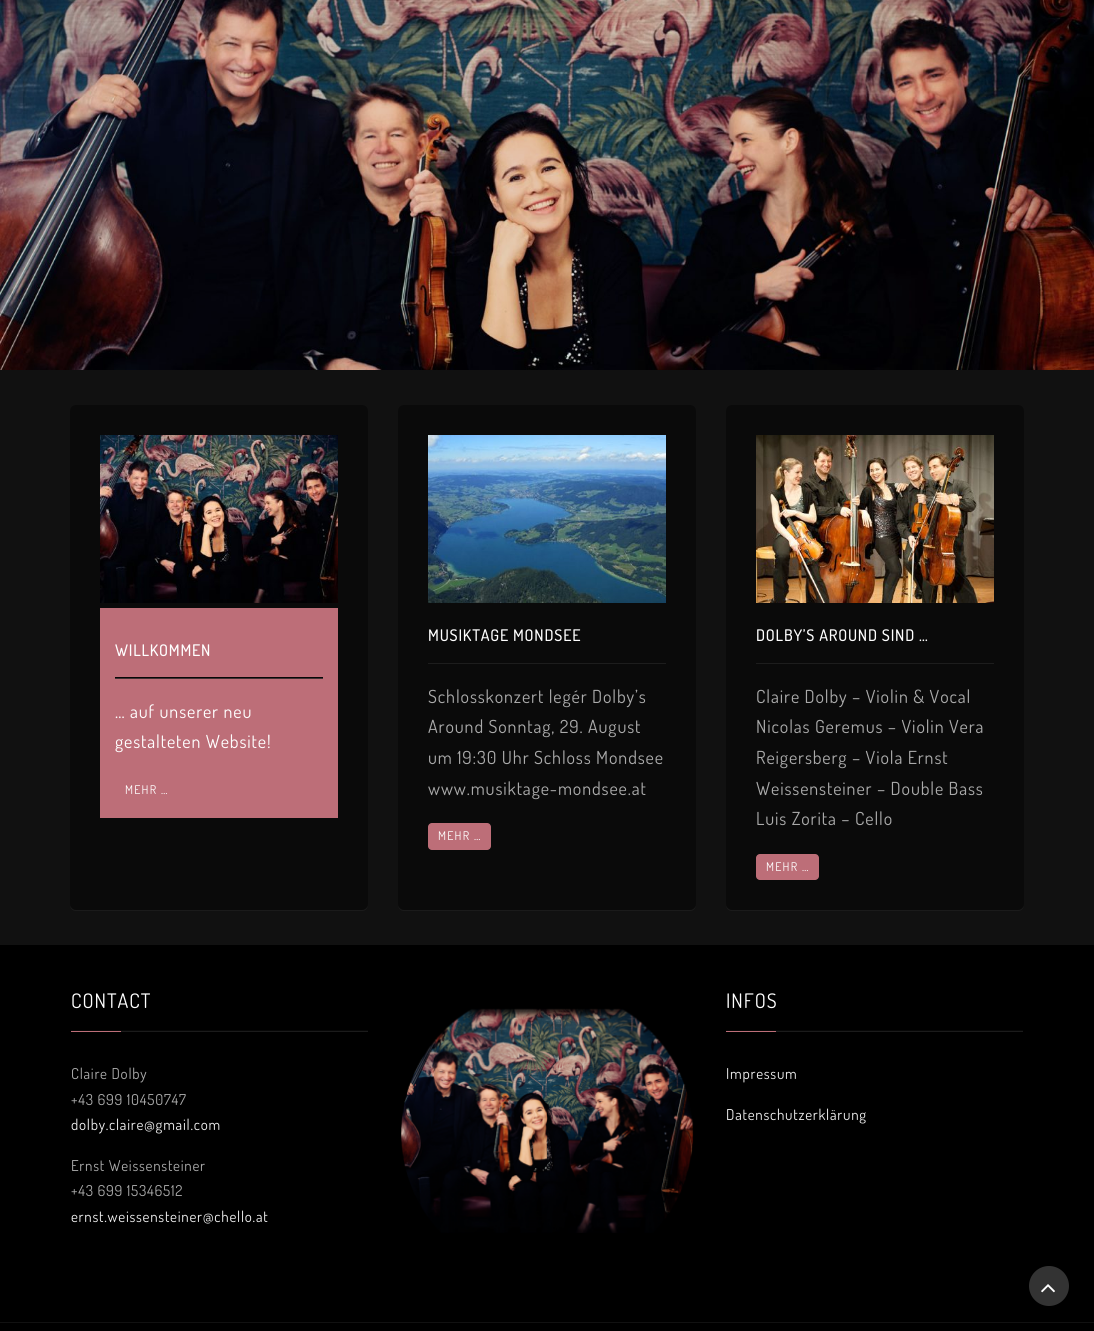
import math
import cairo


def write_spaced(ctx, x, y, s, letter, word):
	ctx.move_to(x, y)
	for ch in s:
		ctx.show_text(ch)
		ctx.rel_move_to(letter + word * (ch == ' '), 0)

def round_path(ctx, x, y, w, h, r):
	ctx.new_sub_path()
	for i, (u, v) in enumerate([(x + w - r, y + h - r), (x + r, y + h - r), (x + r, y + r), (x + w - r, y + r)]):
		ctx.arc(u, v, r, i * math.pi / 2, (i + 1) * math.pi / 2)
	ctx.close_path()

def paste(ctx, path, x, y, w, h):
	ctx.save()
	ctx.set_source_surface(cairo.ImageSurface.create_from_png(path), x, y)
	ctx.rectangle(x, y, w, h)
	ctx.fill()
	ctx.restore()

def draw(ctx):
	ctx.set_source_rgb(0.067, 0.067, 0.067)
	ctx.paint()
	paste(ctx, 'media/1.png', 0, 0, 1094, 370)
	ctx.set_source_rgb(0.106, 0.106, 0.106)
	ctx.new_path()
	ctx.move_to(70, 904)
	ctx.curve_to(70, 908, 72, 911, 76, 911)
	ctx.line_to(362, 911)
	ctx.curve_to(366, 911, 368, 908, 368, 904)
	ctx.curve_to(368, 907, 365, 910, 362, 910)
	ctx.line_to(76, 910)
	ctx.curve_to(73, 910, 70, 907, 70, 904)
	ctx.close_path()
	ctx.fill()
	ctx.set_source_rgba(0, 0, 0, 0.4)
	round_path(ctx, 70, 405, 298, 505, 6)
	ctx.fill()
	paste(ctx, 'media/2.png', 100, 435, 238, 168)
	ctx.set_source_rgb(0.741, 0.431, 0.471)
	ctx.rectangle(100, 608, 238, 210)
	ctx.fill()
	ctx.set_source_rgb(0.255, 0.192, 0.2)
	ctx.rectangle(115, 678, 208, 1)
	ctx.fill()
	ctx.set_source_rgb(0.031, 0.031, 0.031)
	ctx.rectangle(115, 677, 208, 1)
	ctx.fill()
	ctx.select_font_face('Dosis Medium')
	ctx.set_font_size(16)
	ctx.set_source_rgb(1, 1, 1)
	write_spaced(ctx, 115, 656, 'WILLKOMMEN', 0.8, 0)
	ctx.select_font_face('Dosis')
	ctx.set_font_size(18)
	write_spaced(ctx, 115, 718, '… auf unserer neu', 0.9, 0)
	write_spaced(ctx, 115, 748, 'gestalteten Website!', 0.9, 0)
	ctx.set_font_size(12)
	write_spaced(ctx, 125, 794, 'MEHR …', 1.25, 0)
	ctx.set_source_rgb(0.106, 0.106, 0.106)
	ctx.new_path()
	ctx.move_to(398, 904)
	ctx.curve_to(398, 908, 400, 911, 404, 911)
	ctx.line_to(690, 911)
	ctx.curve_to(694, 911, 696, 908, 696, 904)
	ctx.curve_to(696, 907, 693, 910, 690, 910)
	ctx.line_to(404, 910)
	ctx.curve_to(401, 910, 398, 907, 398, 904)
	ctx.close_path()
	ctx.fill()
	ctx.set_source_rgba(0, 0, 0, 0.4)
	round_path(ctx, 398, 405, 298, 505, 6)
	ctx.fill()
	paste(ctx, 'media/3.png', 428, 435, 238, 168)
	ctx.set_source_rgb(0.114, 0.114, 0.114)
	ctx.rectangle(428, 663, 238, 1)
	ctx.fill()
	ctx.select_font_face('Dosis Medium')
	ctx.set_font_size(16)
	ctx.set_source_rgb(1, 1, 1)
	write_spaced(ctx, 428, 641, 'MUSIKTAGE MONDSEE', 0.8, 0)
	ctx.select_font_face('Dosis')
	ctx.set_font_size(18)
	ctx.set_source_rgb(0.667, 0.667, 0.667)
	for x, y, s in [
		(428, 703, 'Schlosskonzert legér Dolby’s'),
		(428, 733, 'Around Sonntag, 29. August'),
		(428, 764, 'um 19:30 Uhr Schloss Mondsee'),
		(428, 795, 'www.musiktage-mondsee.at'),
	]:
		write_spaced(ctx, x, y, s, 0.9, 0)
	ctx.set_source_rgb(0.741, 0.431, 0.471)
	round_path(ctx, 428, 823, 63, 27, 4)
	ctx.fill()
	ctx.set_font_size(12)
	ctx.set_source_rgb(1, 1, 1)
	write_spaced(ctx, 438, 840, 'MEHR …', 1.25, 0)
	ctx.set_source_rgb(0.106, 0.106, 0.106)
	ctx.new_path()
	ctx.move_to(726, 904)
	ctx.curve_to(726, 908, 728, 911, 732, 911)
	ctx.line_to(1018, 911)
	ctx.curve_to(1022, 911, 1024, 908, 1024, 904)
	ctx.curve_to(1024, 907, 1021, 910, 1018, 910)
	ctx.line_to(732, 910)
	ctx.curve_to(729, 910, 726, 907, 726, 904)
	ctx.close_path()
	ctx.fill()
	ctx.set_source_rgba(0, 0, 0, 0.4)
	round_path(ctx, 726, 405, 298, 505, 6)
	ctx.fill()
	paste(ctx, 'media/4.png', 756, 435, 238, 168)
	ctx.set_source_rgb(0.114, 0.114, 0.114)
	ctx.rectangle(756, 663, 238, 1)
	ctx.fill()
	ctx.select_font_face('Dosis Medium')
	ctx.set_font_size(16)
	ctx.set_source_rgb(1, 1, 1)
	write_spaced(ctx, 756, 641, 'DOLBY’S AROUND SIND …', 0.8, 0)
	ctx.select_font_face('Dosis')
	ctx.set_font_size(18)
	ctx.set_source_rgb(0.667, 0.667, 0.667)
	for x, y, s in [
		(756, 703, 'Claire Dolby – Violin & Vocal'),
		(756, 733, 'Nicolas Geremus – Violin Vera'),
		(756, 764, 'Reigersberg – Viola Ernst'),
		(756, 795, 'Weissensteiner – Double Bass'),
		(756, 825, 'Luis Zorita – Cello'),
	]:
		write_spaced(ctx, x, y, s, 0.9, 0)
	ctx.set_source_rgb(0.741, 0.431, 0.471)
	round_path(ctx, 756, 854, 63, 26, 4)
	ctx.fill()
	ctx.set_font_size(12)
	ctx.set_source_rgb(1, 1, 1)
	write_spaced(ctx, 766, 871, 'MEHR …', 1.25, 0)
	ctx.set_source_rgb(0, 0, 0)
	ctx.rectangle(0, 945, 1094, 386)
	ctx.fill()
	ctx.set_source_rgb(0.106, 0.106, 0.106)
	ctx.rectangle(121, 1031, 247, 1)
	ctx.fill()
	ctx.set_source_rgb(0.031, 0.031, 0.031)
	ctx.rectangle(71, 1030, 297, 1)
	ctx.fill()
	ctx.set_font_size(20)
	ctx.set_source_rgb(1, 1, 1)
	write_spaced(ctx, 71, 1008, 'CONTACT', 1, 0)
	ctx.set_source_rgb(0.741, 0.431, 0.471)
	ctx.rectangle(71, 1031, 50, 1)
	ctx.fill()
	ctx.set_font_size(15)
	ctx.set_source_rgb(0.667, 0.667, 0.667)
	write_spaced(ctx, 71, 1079, 'Claire Dolby', 0.75, 0)
	write_spaced(ctx, 71, 1105, '+43 699 10450747', 0.75, 0)
	ctx.set_source_rgb(0.933, 0.933, 0.933)
	write_spaced(ctx, 71, 1130, 'dolby.claire@gmail.com', 0.75, 0)
	ctx.set_source_rgb(0.667, 0.667, 0.667)
	write_spaced(ctx, 71, 1171, 'Ernst Weissensteiner', 0.75, 0)
	write_spaced(ctx, 71, 1196, '+43 699 15346512', 0.75, 0)
	ctx.set_source_rgb(0.933, 0.933, 0.933)
	write_spaced(ctx, 71, 1222, 'ernst.weissensteiner@chello.at', 0.75, 0)
	paste(ctx, 'media/5.png', 401, 1008, 293, 225)
	ctx.set_source_rgb(0.106, 0.106, 0.106)
	ctx.rectangle(776, 1031, 247, 1)
	ctx.fill()
	ctx.set_source_rgb(0.031, 0.031, 0.031)
	ctx.rectangle(726, 1030, 297, 1)
	ctx.fill()
	ctx.set_font_size(20)
	ctx.set_source_rgb(1, 1, 1)
	write_spaced(ctx, 726, 1008, 'INFOS', 1, 0)
	ctx.set_source_rgb(0.741, 0.431, 0.471)
	ctx.rectangle(726, 1031, 50, 1)
	ctx.fill()
	ctx.set_font_size(15)
	ctx.set_source_rgb(0.933, 0.933, 0.933)
	write_spaced(ctx, 726, 1079, 'Impressum', 0.75, 0)
	write_spaced(ctx, 726, 1120, 'Datenschutzerklärung', 0.75, 0)
	ctx.set_source_rgb(0.067, 0.067, 0.067)
	ctx.rectangle(0, 1322, 1094, 1)
	ctx.fill()
	ctx.set_source_rgb(0.2, 0.2, 0.2)
	ctx.arc(1049, 1286, 20, 0, 2 * math.pi)
	ctx.fill()
	paste(ctx, 'media/6.png', 1041, 1284, 14, 9)


surface = cairo.ImageSurface(cairo.FORMAT_RGB24, 1094, 1331)
ctx = cairo.Context(surface)
options = cairo.FontOptions()
options.set_hint_metrics(cairo.HINT_METRICS_OFF)
options.set_hint_style(cairo.HINT_STYLE_NONE)
ctx.set_font_options(options)
ctx.set_miter_limit(4)
draw(ctx)
surface.write_to_png('image.png')
